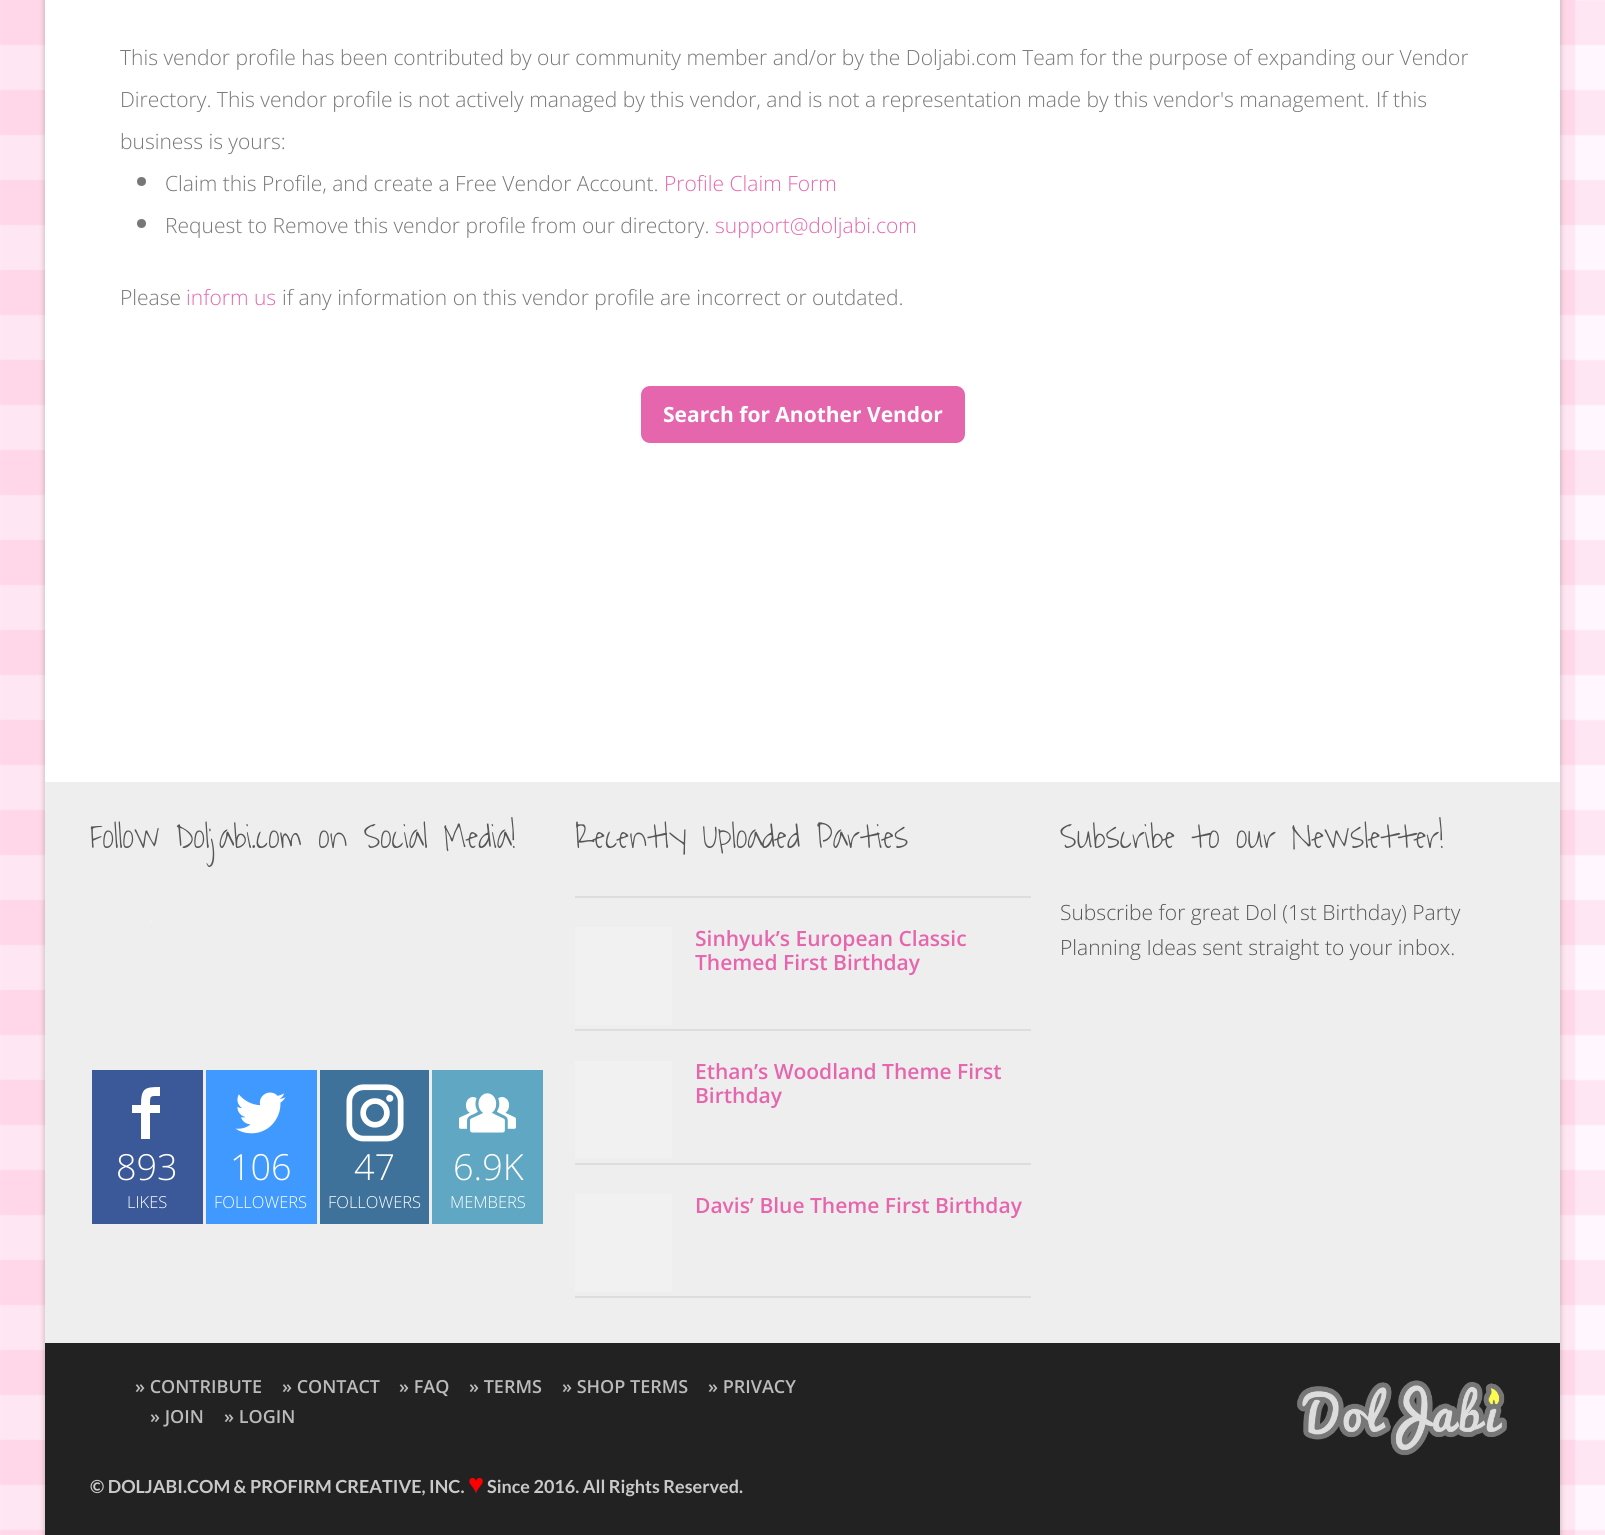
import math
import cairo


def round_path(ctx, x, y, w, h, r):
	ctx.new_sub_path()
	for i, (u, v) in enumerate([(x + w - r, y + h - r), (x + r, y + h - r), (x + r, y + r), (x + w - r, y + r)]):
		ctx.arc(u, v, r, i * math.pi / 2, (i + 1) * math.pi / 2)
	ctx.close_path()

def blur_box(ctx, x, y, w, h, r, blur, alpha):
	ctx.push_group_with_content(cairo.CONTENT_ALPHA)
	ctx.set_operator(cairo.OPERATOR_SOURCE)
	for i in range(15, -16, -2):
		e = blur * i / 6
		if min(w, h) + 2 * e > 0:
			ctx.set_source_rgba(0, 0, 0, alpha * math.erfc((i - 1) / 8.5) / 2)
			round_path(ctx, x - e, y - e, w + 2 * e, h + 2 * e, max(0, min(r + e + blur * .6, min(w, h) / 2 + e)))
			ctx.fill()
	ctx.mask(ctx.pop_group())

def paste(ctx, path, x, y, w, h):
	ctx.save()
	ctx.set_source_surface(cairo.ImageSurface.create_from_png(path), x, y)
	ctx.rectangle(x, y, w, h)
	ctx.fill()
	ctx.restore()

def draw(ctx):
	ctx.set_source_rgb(1, 1, 1)
	ctx.paint()
	paste(ctx, 'media/1.png', 0, 0, 1605, 1535)
	ctx.set_source_rgb(0, 0, 0)
	blur_box(ctx, 45, -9, 1515, 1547, 0, 3, 0.25)
	ctx.set_source_rgb(1, 1, 1)
	ctx.rectangle(45, 0, 1515, 782)
	ctx.fill()
	ctx.select_font_face('Open Sans Light')
	ctx.set_font_size(21)
	ctx.set_source_rgb(0.467, 0.467, 0.467)
	for x, y, s in [
		(120, 65, 'This vendor profile has been contributed by our community member and/or by the Doljabi.com Team for the purpose of expanding our Vendor'),
		(120, 107, 'Directory. This vendor profile is not actively managed by this vendor, and is not a representation made by this vendor\'s management.'),
		(1376, 107, 'If this'),
		(120, 149, 'business is yours:'),
	]:
		ctx.move_to(x, y)
		ctx.show_text(s)
	ctx.new_path()
	ctx.arc(141.5, 181.5, 4.5, 0, 2 * math.pi)
	ctx.fill()
	ctx.move_to(165, 191)
	ctx.show_text('Claim this Profile, and create a Free Vendor Account.')
	ctx.set_source_rgb(0.902, 0.4, 0.682)
	ctx.move_to(664, 191)
	ctx.show_text('Profile Claim Form')
	ctx.set_source_rgb(0.467, 0.467, 0.467)
	ctx.new_path()
	ctx.arc(141.5, 223.5, 4.5, 0, 2 * math.pi)
	ctx.fill()
	ctx.move_to(165, 233)
	ctx.show_text('Request to Remove this vendor profile from our directory.')
	ctx.set_source_rgb(0.902, 0.4, 0.682)
	ctx.move_to(715, 233)
	ctx.show_text('support@doljabi.com')
	ctx.set_source_rgb(0.467, 0.467, 0.467)
	ctx.move_to(120, 305)
	ctx.show_text('Please')
	ctx.set_source_rgb(0.902, 0.4, 0.682)
	ctx.move_to(186, 305)
	ctx.show_text('inform us')
	ctx.set_source_rgb(0.467, 0.467, 0.467)
	ctx.move_to(282, 305)
	ctx.show_text('if any information on this vendor profile are incorrect or outdated.')
	ctx.set_source_rgb(0.902, 0.4, 0.682)
	round_path(ctx, 641, 386, 324, 57, 9)
	ctx.fill()
	ctx.select_font_face('Open Sans', cairo.FONT_SLANT_NORMAL, cairo.FONT_WEIGHT_BOLD)
	ctx.set_source_rgb(1, 1, 1)
	ctx.move_to(663, 422)
	ctx.show_text('Search for Another Vendor')
	ctx.set_source_rgb(0.933, 0.933, 0.933)
	ctx.rectangle(45, 782, 1515, 561)
	ctx.fill()
	ctx.select_font_face('Waiting for the Sunrise Light')
	ctx.set_font_size(36)
	ctx.set_source_rgb(0.337, 0.337, 0.337)
	ctx.move_to(90, 848)
	ctx.show_text('Follow Doljabi.com on Social Media!')
	ctx.set_source_rgb(0.945, 0.945, 0.945)
	ctx.rectangle(150, 920, 2, 2)
	ctx.fill()
	ctx.set_source_rgb(0.231, 0.349, 0.596)
	ctx.rectangle(92, 1070, 111, 154)
	ctx.fill()
	ctx.set_source_rgb(1, 1, 1)
	ctx.new_path()
	ctx.move_to(160, 1096)
	ctx.curve_to(150, 1096, 150, 1095, 150, 1105)
	ctx.line_to(160, 1105)
	ctx.line_to(160, 1113)
	ctx.line_to(150, 1113)
	ctx.line_to(150, 1139)
	ctx.line_to(141, 1139)
	ctx.line_to(141, 1113)
	ctx.line_to(132, 1113)
	ctx.line_to(132, 1105)
	ctx.line_to(141, 1105)
	ctx.curve_to(141, 1088, 145, 1087, 160, 1087)
	ctx.close_path()
	ctx.fill()
	ctx.select_font_face('Open Sans Light')
	ctx.move_to(116, 1180)
	ctx.show_text('893')
	ctx.set_font_size(16.5)
	ctx.move_to(127, 1208)
	ctx.show_text('LIKES')
	ctx.set_source_rgb(0.251, 0.6, 1)
	ctx.rectangle(206, 1070, 111, 154)
	ctx.fill()
	paste(ctx, 'media/2.png', 235, 1092, 51, 42)
	ctx.set_font_size(36)
	ctx.set_source_rgb(1, 1, 1)
	ctx.move_to(230, 1180)
	ctx.show_text('106')
	ctx.set_font_size(16.5)
	ctx.move_to(214, 1208)
	ctx.show_text('FOLLOWERS')
	ctx.set_source_rgb(0.247, 0.447, 0.608)
	ctx.rectangle(320, 1070, 109, 154)
	ctx.fill()
	paste(ctx, 'media/3.png', 346, 1084, 58, 58)
	ctx.set_font_size(36)
	ctx.set_source_rgb(1, 1, 1)
	ctx.move_to(354, 1180)
	ctx.show_text('47')
	ctx.set_font_size(16.5)
	ctx.move_to(328, 1208)
	ctx.show_text('FOLLOWERS')
	ctx.set_source_rgb(0.373, 0.655, 0.761)
	ctx.rectangle(432, 1070, 111, 154)
	ctx.fill()
	paste(ctx, 'media/4.png', 459, 1093, 57, 40)
	ctx.set_font_size(36)
	ctx.set_source_rgb(1, 1, 1)
	ctx.move_to(453, 1180)
	ctx.show_text('6.9K')
	ctx.set_font_size(16.5)
	ctx.move_to(450, 1208)
	ctx.show_text('MEMBERS')
	ctx.select_font_face('Waiting for the Sunrise Light')
	ctx.set_font_size(36)
	ctx.set_source_rgb(0.337, 0.337, 0.337)
	ctx.move_to(575, 848)
	ctx.show_text('Recently Uploaded Parties')
	ctx.set_source_rgb(0.867, 0.867, 0.867)
	ctx.rectangle(575, 896, 456, 2)
	ctx.rectangle(575, 1029, 456, 2)
	ctx.fill()
	ctx.set_source_rgb(0.945, 0.945, 0.945)
	ctx.rectangle(575, 927, 97, 98)
	ctx.fill()
	ctx.select_font_face('Open Sans SemiBold')
	ctx.set_font_size(21)
	ctx.set_source_rgb(0.902, 0.4, 0.682)
	ctx.move_to(695, 946)
	ctx.show_text('Sinhyuk’s European Classic')
	ctx.move_to(695, 970)
	ctx.show_text('Themed First Birthday')
	ctx.set_source_rgb(0.867, 0.867, 0.867)
	ctx.rectangle(575, 1163, 456, 2)
	ctx.fill()
	ctx.set_source_rgb(0.945, 0.945, 0.945)
	ctx.rectangle(575, 1061, 97, 97)
	ctx.fill()
	ctx.set_source_rgb(0.902, 0.4, 0.682)
	ctx.move_to(695, 1079)
	ctx.show_text('Ethan’s Woodland Theme First')
	ctx.move_to(695, 1103)
	ctx.show_text('Birthday')
	ctx.set_source_rgb(0.867, 0.867, 0.867)
	ctx.rectangle(575, 1296, 456, 2)
	ctx.fill()
	ctx.set_source_rgb(0.945, 0.945, 0.945)
	ctx.rectangle(575, 1194, 97, 98)
	ctx.fill()
	ctx.set_source_rgb(0.902, 0.4, 0.682)
	ctx.move_to(695, 1213)
	ctx.show_text('Davis’ Blue Theme First Birthday')
	ctx.select_font_face('Waiting for the Sunrise Light')
	ctx.set_font_size(36)
	ctx.set_source_rgb(0.337, 0.337, 0.337)
	ctx.move_to(1060, 848)
	ctx.show_text('Subscribe to our Newsletter!')
	ctx.select_font_face('Open Sans Light')
	ctx.set_font_size(21)
	ctx.move_to(1060, 920)
	ctx.show_text('Subscribe for great Dol (1st Birthday) Party')
	ctx.move_to(1060, 955)
	ctx.show_text('Planning Ideas sent straight to your inbox.')
	ctx.set_source_rgb(0.133, 0.133, 0.133)
	ctx.rectangle(45, 1343, 1515, 192)
	ctx.fill()
	ctx.select_font_face('Open Sans SemiBold')
	ctx.set_font_size(18)
	ctx.set_source_rgb(0.733, 0.733, 0.733)
	for x, y, s in [
		(135, 1393, '» CONTRIBUTE'),
		(282, 1393, '» CONTACT'),
		(399, 1393, '» FAQ'),
		(469, 1393, '» TERMS'),
		(562, 1393, '» SHOP TERMS'),
		(708, 1393, '» PRIVACY'),
		(150, 1423, '» JOIN'),
		(224, 1423, '» LOGIN'),
	]:
		ctx.move_to(x, y)
		ctx.show_text(s)
	ctx.select_font_face('Lato', cairo.FONT_SLANT_NORMAL, cairo.FONT_WEIGHT_BOLD)
	ctx.set_source_rgb(0.788, 0.788, 0.788)
	ctx.move_to(90, 1493)
	ctx.show_text('© DOLJABI.COM & PROFIRM CREATIVE, INC.')
	ctx.select_font_face('Liberation Serif', cairo.FONT_SLANT_NORMAL, cairo.FONT_WEIGHT_BOLD)
	ctx.set_font_size(27)
	ctx.set_source_rgb(1, 0, 0)
	ctx.move_to(468, 1493)
	ctx.show_text('♥')
	ctx.select_font_face('Lato', cairo.FONT_SLANT_NORMAL, cairo.FONT_WEIGHT_BOLD)
	ctx.set_font_size(18)
	ctx.set_source_rgb(0.788, 0.788, 0.788)
	ctx.move_to(487, 1493)
	ctx.show_text('Since 2016. All Rights Reserved.')
	paste(ctx, 'media/5.png', 1297, 1380, 210, 76)


surface = cairo.ImageSurface(cairo.FORMAT_RGB24, 1605, 1535)
ctx = cairo.Context(surface)
options = cairo.FontOptions()
options.set_hint_metrics(cairo.HINT_METRICS_OFF)
options.set_hint_style(cairo.HINT_STYLE_NONE)
ctx.set_font_options(options)
ctx.set_miter_limit(4)
draw(ctx)
surface.write_to_png('image.png')
